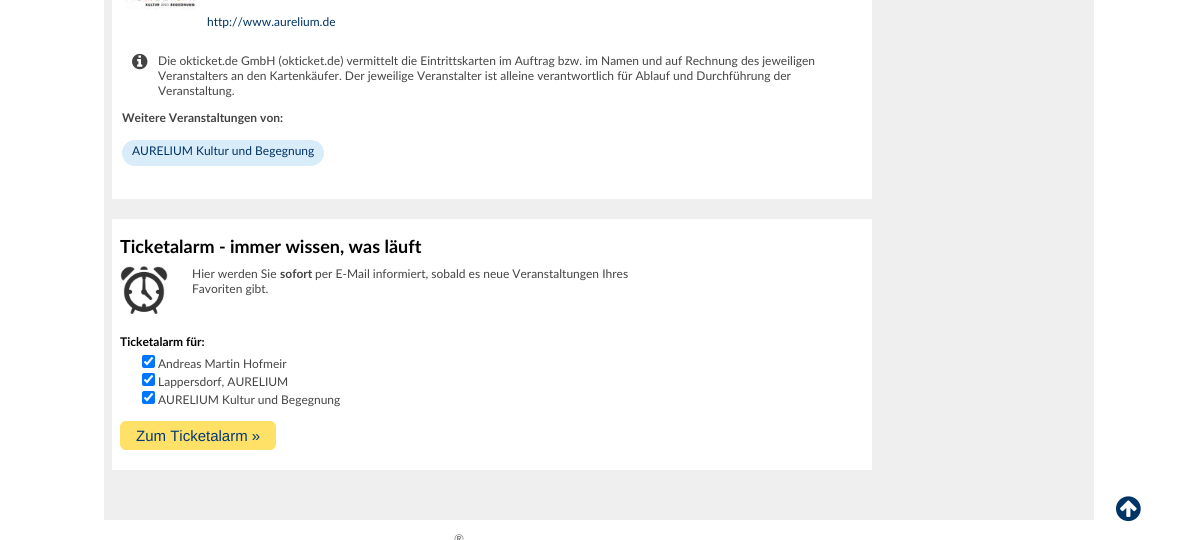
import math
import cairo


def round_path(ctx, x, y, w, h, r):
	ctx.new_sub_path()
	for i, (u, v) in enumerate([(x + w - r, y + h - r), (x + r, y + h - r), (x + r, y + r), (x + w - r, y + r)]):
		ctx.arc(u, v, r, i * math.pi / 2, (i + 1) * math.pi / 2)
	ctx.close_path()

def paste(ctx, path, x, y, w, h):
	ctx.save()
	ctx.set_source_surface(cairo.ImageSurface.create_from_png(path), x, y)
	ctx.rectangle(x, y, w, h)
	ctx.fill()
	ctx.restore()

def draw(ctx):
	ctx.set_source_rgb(1, 1, 1)
	ctx.paint()
	ctx.set_source_rgb(0.937, 0.937, 0.937)
	ctx.rectangle(104, 0, 990, 520)
	ctx.fill()
	ctx.set_source_rgb(1, 1, 1)
	ctx.rectangle(112, 0, 760, 199)
	ctx.fill()
	paste(ctx, 'media/1.png', 125, 0, 72, 10)
	ctx.select_font_face('Lato')
	ctx.set_font_size(12)
	ctx.set_source_rgb(0, 0.2, 0.4)
	ctx.move_to(207, 26)
	ctx.show_text('http://www.aurelium.de')
	paste(ctx, 'media/2.png', 132, 53, 16, 17)
	ctx.set_source_rgb(0.267, 0.267, 0.267)
	for x, y, s in [
		(158, 65, 'Die okticket.de GmbH (okticket.de) vermittelt die Eintrittskarten im Auftrag bzw. im Namen und auf Rechnung des jeweiligen'),
		(158, 80, 'Veranstalters an den Kartenkäufer. Der jeweilige Veranstalter ist alleine verantwortlich für Ablauf und Durchführung der'),
		(158, 95, 'Veranstaltung.'),
	]:
		ctx.move_to(x, y)
		ctx.show_text(s)
	ctx.select_font_face('Lato', cairo.FONT_SLANT_NORMAL, cairo.FONT_WEIGHT_BOLD)
	ctx.move_to(122, 122)
	ctx.show_text('Weitere Veranstaltungen von:')
	ctx.set_source_rgb(0.847, 0.925, 0.973)
	round_path(ctx, 122, 140, 202, 26, 13)
	ctx.fill()
	ctx.select_font_face('Lato')
	ctx.set_source_rgb(0, 0.2, 0.4)
	ctx.move_to(132, 155)
	ctx.show_text('AURELIUM Kultur und Begegnung')
	ctx.set_source_rgb(1, 1, 1)
	ctx.rectangle(112, 219, 760, 251)
	ctx.fill()
	ctx.select_font_face('Lato', cairo.FONT_SLANT_NORMAL, cairo.FONT_WEIGHT_BOLD)
	ctx.set_font_size(18)
	ctx.set_source_rgb(0, 0, 0)
	ctx.move_to(120, 253)
	ctx.show_text('Ticketalarm - immer wissen, was läuft')
	paste(ctx, 'media/3.png', 120, 266, 48, 48)
	ctx.select_font_face('Lato')
	ctx.set_font_size(12)
	ctx.set_source_rgb(0.267, 0.267, 0.267)
	ctx.move_to(192, 278)
	ctx.show_text('Hier werden Sie')
	ctx.select_font_face('Lato', cairo.FONT_SLANT_NORMAL, cairo.FONT_WEIGHT_BOLD)
	ctx.move_to(280, 278)
	ctx.show_text('sofort')
	ctx.select_font_face('Lato')
	ctx.move_to(315, 278)
	ctx.show_text('per E-Mail informiert, sobald es neue Veranstaltungen Ihres')
	ctx.move_to(192, 293)
	ctx.show_text('Favoriten gibt.')
	ctx.select_font_face('Lato', cairo.FONT_SLANT_NORMAL, cairo.FONT_WEIGHT_BOLD)
	ctx.set_source_rgb(0, 0, 0)
	ctx.move_to(120, 346)
	ctx.show_text('Ticketalarm für:')
	ctx.set_source_rgb(0, 0.459, 1)
	round_path(ctx, 142, 355, 13, 13, 2)
	ctx.fill()
	ctx.new_path()
	ctx.move_to(144.5, 361.5)
	ctx.line_to(147, 364)
	ctx.line_to(152.5, 357.5)
	ctx.set_source_rgb(1, 1, 1)
	ctx.set_line_width(2.1)
	ctx.stroke()
	ctx.select_font_face('Lato')
	ctx.set_source_rgb(0.267, 0.267, 0.267)
	ctx.move_to(158, 368)
	ctx.show_text('Andreas Martin Hofmeir')
	ctx.set_source_rgb(0, 0.459, 1)
	round_path(ctx, 142, 373, 13, 13, 2)
	ctx.fill()
	ctx.new_path()
	ctx.move_to(144.5, 379.5)
	ctx.line_to(147, 382)
	ctx.line_to(152.5, 375.5)
	ctx.set_source_rgb(1, 1, 1)
	ctx.stroke()
	ctx.set_source_rgb(0.267, 0.267, 0.267)
	ctx.move_to(158, 386)
	ctx.show_text('Lappersdorf, AURELIUM')
	ctx.set_source_rgb(0, 0.459, 1)
	round_path(ctx, 142, 391, 13, 13, 2)
	ctx.fill()
	ctx.new_path()
	ctx.move_to(144.5, 397.5)
	ctx.line_to(147, 400)
	ctx.line_to(152.5, 393.5)
	ctx.set_source_rgb(1, 1, 1)
	ctx.stroke()
	ctx.set_source_rgb(0.267, 0.267, 0.267)
	ctx.move_to(158, 404)
	ctx.show_text('AURELIUM Kultur und Begegnung')
	ctx.set_source_rgb(1, 0.882, 0.404)
	round_path(ctx, 121, 422, 154, 27, 5)
	ctx.fill_preserve()
	ctx.set_line_width(2)
	ctx.stroke()
	ctx.select_font_face('Liberation Sans')
	ctx.set_font_size(15)
	ctx.set_source_rgb(0, 0.216, 0.463)
	ctx.move_to(136, 441)
	ctx.show_text('Zum Ticketalarm »')
	paste(ctx, 'media/4.png', 1116, 496, 25, 26)
	ctx.select_font_face('Lato')
	ctx.set_font_size(12)
	ctx.set_source_rgb(0.4, 0.4, 0.4)
	ctx.move_to(454, 543)
	ctx.show_text('®')


surface = cairo.ImageSurface(cairo.FORMAT_RGB24, 1198, 540)
ctx = cairo.Context(surface)
options = cairo.FontOptions()
options.set_hint_metrics(cairo.HINT_METRICS_OFF)
options.set_hint_style(cairo.HINT_STYLE_NONE)
ctx.set_font_options(options)
ctx.set_miter_limit(4)
draw(ctx)
surface.write_to_png('image.png')
